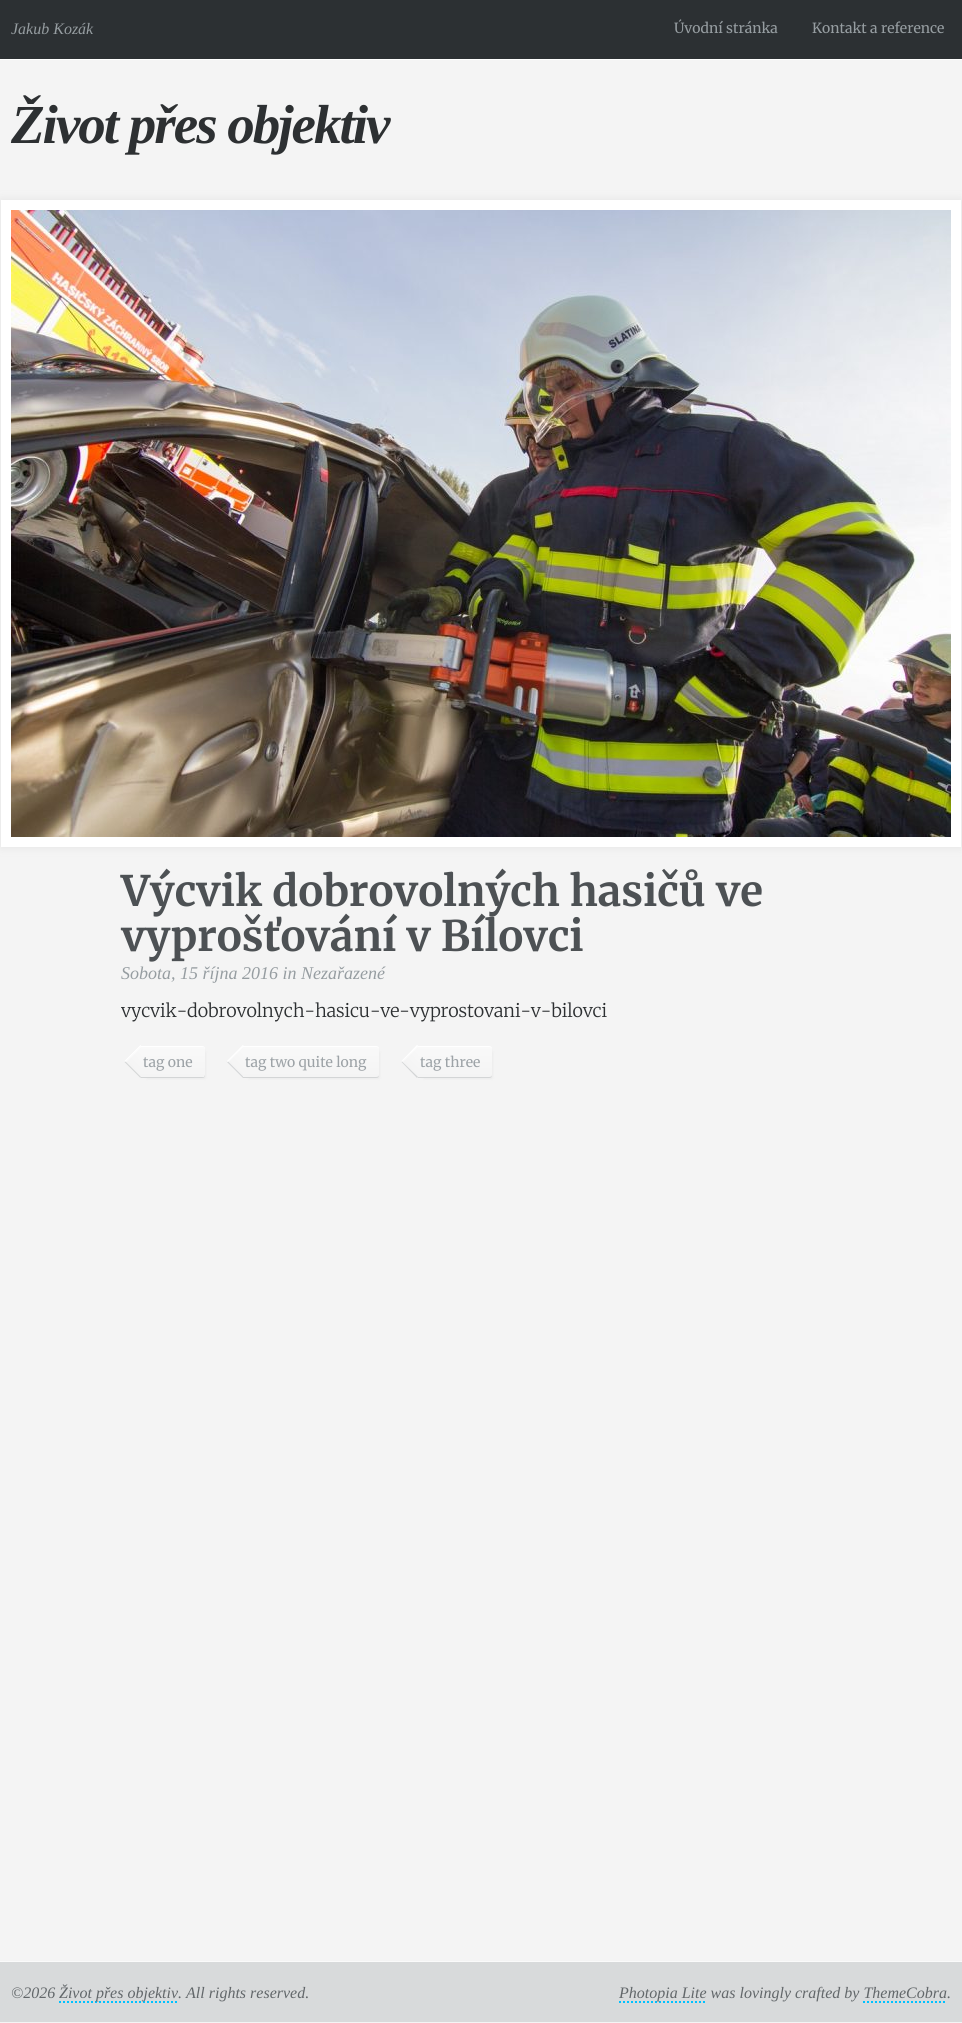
import math
import cairo


def write_spaced(ctx, x, y, s, letter, word):
	ctx.move_to(x, y)
	for ch in s:
		ctx.show_text(ch)
		ctx.rel_move_to(letter + word * (ch == ' '), 0)

def round_path(ctx, x, y, w, h, r):
	ctx.new_sub_path()
	for i, (u, v) in enumerate([(x + w - r, y + h - r), (x + r, y + h - r), (x + r, y + r), (x + w - r, y + r)]):
		ctx.arc(u, v, r, i * math.pi / 2, (i + 1) * math.pi / 2)
	ctx.close_path()

def blur_box(ctx, x, y, w, h, r, blur, alpha):
	ctx.push_group_with_content(cairo.CONTENT_ALPHA)
	ctx.set_operator(cairo.OPERATOR_SOURCE)
	for i in range(15, -16, -2):
		e = blur * i / 6
		if min(w, h) + 2 * e > 0:
			ctx.set_source_rgba(0, 0, 0, alpha * math.erfc((i - 1) / 8.5) / 2)
			round_path(ctx, x - e, y - e, w + 2 * e, h + 2 * e, max(0, min(r + e + blur * .6, min(w, h) / 2 + e)))
			ctx.fill()
	ctx.mask(ctx.pop_group())

def paste(ctx, path, x, y, w, h):
	ctx.save()
	ctx.set_source_surface(cairo.ImageSurface.create_from_png(path), x, y)
	ctx.rectangle(x, y, w, h)
	ctx.fill()
	ctx.restore()

def draw(ctx):
	ctx.set_source_rgb(0.957, 0.957, 0.957)
	ctx.paint()
	ctx.set_source_rgb(0.173, 0.188, 0.2)
	ctx.rectangle(0, 0, 962, 59)
	ctx.fill()
	ctx.set_source_rgb(1, 1, 1)
	ctx.rectangle(0, 59, 962, 1)
	ctx.fill()
	ctx.select_font_face('Liberation Serif', cairo.FONT_SLANT_ITALIC)
	ctx.set_font_size(16)
	ctx.set_source_rgb(0.588, 0.616, 0.631)
	ctx.move_to(11, 34)
	ctx.show_text('Jakub Kozák')
	ctx.select_font_face('Merriweather')
	ctx.set_font_size(14)
	ctx.move_to(674, 33)
	ctx.show_text('Úvodní stránka')
	ctx.move_to(812, 33)
	ctx.show_text('Kontakt a reference')
	ctx.select_font_face('Liberation Serif', cairo.FONT_SLANT_ITALIC, cairo.FONT_WEIGHT_BOLD)
	ctx.set_font_size(55)
	ctx.set_source_rgb(0.176, 0.188, 0.196)
	write_spaced(ctx, 11, 143, 'Život přes objektiv', -2, 0)
	ctx.set_source_rgb(0.894, 0.894, 0.894)
	blur_box(ctx, 1, 200, 960, 647, 0, 5, 1)
	ctx.set_source_rgb(1, 1, 1)
	ctx.rectangle(1, 200, 960, 647)
	ctx.fill()
	paste(ctx, 'media/1.png', 11, 210, 940, 627)
	ctx.select_font_face('Merriweather', cairo.FONT_SLANT_NORMAL, cairo.FONT_WEIGHT_BOLD)
	ctx.set_font_size(42)
	ctx.set_source_rgb(0.302, 0.318, 0.329)
	ctx.move_to(121, 906)
	ctx.show_text('Výcvik dobrovolných hasičů ve')
	ctx.move_to(121, 951)
	ctx.show_text('vyprošťování v Bílovci')
	ctx.select_font_face('Liberation Serif', cairo.FONT_SLANT_ITALIC)
	ctx.set_font_size(18)
	ctx.set_source_rgb(0.588, 0.616, 0.631)
	ctx.move_to(121, 979)
	ctx.show_text('Sobota, 15 října 2016 in Nezařazené')
	ctx.select_font_face('Merriweather Light')
	ctx.set_source_rgb(0.176, 0.188, 0.196)
	write_spaced(ctx, 121, 1017, 'vycvik-dobrovolnych-hasicu-ve-vyprostovani-v-bilovci', -0.1, 0)
	gradient = cairo.LinearGradient(149, 1054, 133, 1069)
	gradient.add_color_stop_rgba(0, 0.976, 0.976, 0.976, 1)
	gradient.add_color_stop_rgba(1, 0.957, 0.957, 0.957, 1)
	ctx.set_source(gradient)
	ctx.new_path()
	ctx.move_to(140.5, 1045)
	ctx.line_to(157, 1061.5)
	ctx.line_to(141, 1077)
	ctx.line_to(125, 1061)
	ctx.line_to(133, 1052.5)
	ctx.close_path()
	ctx.fill()
	gradient = cairo.LinearGradient(133, 1069, 118, 1085)
	gradient.add_color_stop_rgba(0, 0.976, 0.976, 0.976, 1)
	gradient.add_color_stop_rgba(1, 0.957, 0.957, 0.957, 1)
	ctx.set_source(gradient)
	ctx.new_path()
	ctx.move_to(125, 1061)
	ctx.line_to(141, 1077)
	ctx.line_to(140.5, 1077.5)
	ctx.line_to(124.5, 1061.5)
	ctx.close_path()
	ctx.fill()
	ctx.set_source_rgba(1, 1, 1, 0.5)
	ctx.new_path()
	ctx.move_to(141, 1046)
	ctx.line_to(142, 1046.5)
	ctx.line_to(126.5, 1062)
	ctx.line_to(125.5, 1061.5)
	ctx.close_path()
	ctx.fill()
	ctx.set_source_rgb(0.894, 0.894, 0.894)
	blur_box(ctx, 147, 1052, 58, 26, 0, 1.5, 1)
	ctx.save()
	ctx.new_path()
	ctx.move_to(141, 1046)
	ctx.line_to(202, 1046)
	ctx.curve_to(203.5, 1046, 205, 1047.5, 205, 1049)
	ctx.line_to(205, 1075)
	ctx.curve_to(205, 1076.5, 203.5, 1078, 202, 1078)
	ctx.line_to(141, 1078)
	ctx.close_path()
	ctx.clip()
	gradient = cairo.LinearGradient(173, 1047, 173, 1077)
	gradient.add_color_stop_rgba(0, 0.976, 0.976, 0.976, 1)
	gradient.add_color_stop_rgba(1, 0.957, 0.957, 0.957, 1)
	ctx.set_source(gradient)
	ctx.rectangle(141, 1047, 64, 30)
	ctx.fill()
	ctx.restore()
	ctx.set_source_rgb(1, 1, 1)
	ctx.new_path()
	ctx.move_to(141, 1046)
	ctx.line_to(141, 1047)
	ctx.line_to(204, 1047)
	ctx.line_to(205, 1049)
	ctx.curve_to(205, 1047, 204, 1046, 202, 1046)
	ctx.close_path()
	ctx.fill()
	ctx.set_source_rgb(0.827, 0.835, 0.839)
	ctx.new_path()
	ctx.move_to(202, 1078)
	ctx.curve_to(204, 1078, 205, 1077, 205, 1075)
	ctx.line_to(204, 1077)
	ctx.line_to(141, 1077)
	ctx.line_to(141, 1078)
	ctx.close_path()
	ctx.fill()
	ctx.new_path()
	ctx.move_to(125, 1061)
	ctx.line_to(141, 1077)
	ctx.line_to(140.5, 1078)
	ctx.line_to(124, 1061.5)
	ctx.close_path()
	ctx.fill()
	ctx.set_source_rgb(1, 1, 1)
	ctx.new_path()
	ctx.move_to(140.5, 1045)
	ctx.line_to(141, 1046)
	ctx.line_to(125, 1062)
	ctx.line_to(124, 1061.5)
	ctx.close_path()
	ctx.fill()
	ctx.select_font_face('Merriweather')
	ctx.set_font_size(14)
	ctx.set_source_rgb(0.616, 0.639, 0.655)
	ctx.move_to(143, 1067)
	ctx.show_text('tag one')
	gradient = cairo.LinearGradient(251, 1054, 236, 1069)
	gradient.add_color_stop_rgba(0, 0.976, 0.976, 0.976, 1)
	gradient.add_color_stop_rgba(1, 0.957, 0.957, 0.957, 1)
	ctx.set_source(gradient)
	ctx.new_path()
	ctx.move_to(243, 1045)
	ctx.line_to(259, 1061.5)
	ctx.line_to(243.5, 1077)
	ctx.line_to(227.5, 1061)
	ctx.line_to(241.5, 1046.5)
	ctx.close_path()
	ctx.fill()
	ctx.set_source_rgba(1, 1, 1, 0.5)
	ctx.new_path()
	ctx.move_to(243.5, 1046)
	ctx.line_to(244, 1046.5)
	ctx.line_to(228.5, 1062)
	ctx.line_to(228, 1061.5)
	ctx.close_path()
	ctx.fill()
	ctx.set_source_rgb(0.827, 0.835, 0.839)
	ctx.new_path()
	ctx.move_to(227.5, 1061)
	ctx.line_to(243.5, 1077)
	ctx.line_to(243, 1078)
	ctx.line_to(226.5, 1061.5)
	ctx.close_path()
	ctx.fill()
	ctx.set_source_rgb(1, 1, 1)
	ctx.new_path()
	ctx.move_to(243, 1045)
	ctx.line_to(243.5, 1046)
	ctx.line_to(227.5, 1062)
	ctx.line_to(226.5, 1061.5)
	ctx.close_path()
	ctx.fill()
	ctx.set_source_rgb(0.894, 0.894, 0.894)
	blur_box(ctx, 249, 1052, 130, 26, 0, 1.5, 1)
	ctx.save()
	ctx.new_path()
	ctx.move_to(243, 1046)
	ctx.line_to(376, 1046)
	ctx.curve_to(377.5, 1046, 379, 1047.5, 379, 1049)
	ctx.line_to(379, 1075)
	ctx.curve_to(379, 1076.5, 377.5, 1078, 376, 1078)
	ctx.line_to(243, 1078)
	ctx.close_path()
	ctx.clip()
	gradient = cairo.LinearGradient(311, 1047, 311, 1077)
	gradient.add_color_stop_rgba(0, 0.976, 0.976, 0.976, 1)
	gradient.add_color_stop_rgba(1, 0.957, 0.957, 0.957, 1)
	ctx.set_source(gradient)
	ctx.rectangle(243, 1047, 136, 30)
	ctx.fill()
	ctx.restore()
	ctx.set_source_rgb(1, 1, 1)
	ctx.new_path()
	ctx.move_to(243, 1046)
	ctx.line_to(243, 1047)
	ctx.line_to(376, 1047)
	ctx.curve_to(378, 1047, 379, 1048, 379, 1049)
	ctx.curve_to(379, 1047, 378, 1046, 376, 1046)
	ctx.close_path()
	ctx.fill()
	ctx.set_source_rgb(0.827, 0.835, 0.839)
	ctx.new_path()
	ctx.move_to(376, 1078)
	ctx.curve_to(378, 1078, 379, 1077, 379, 1075)
	ctx.curve_to(379, 1076, 378, 1077, 376, 1077)
	ctx.line_to(243, 1077)
	ctx.line_to(243, 1078)
	ctx.close_path()
	ctx.fill()
	ctx.set_source_rgb(0.616, 0.639, 0.655)
	ctx.move_to(245, 1067)
	ctx.show_text('tag two quite long')
	gradient = cairo.LinearGradient(426, 1054, 410, 1069)
	gradient.add_color_stop_rgba(0, 0.976, 0.976, 0.976, 1)
	gradient.add_color_stop_rgba(1, 0.957, 0.957, 0.957, 1)
	ctx.set_source(gradient)
	ctx.new_path()
	ctx.move_to(417, 1045)
	ctx.line_to(433.5, 1061.5)
	ctx.line_to(418, 1077)
	ctx.line_to(401.5, 1061)
	ctx.line_to(407, 1055.5)
	ctx.close_path()
	ctx.fill()
	ctx.set_source_rgba(1, 1, 1, 0.5)
	ctx.new_path()
	ctx.move_to(418, 1046)
	ctx.line_to(418.5, 1046.5)
	ctx.line_to(403, 1062)
	ctx.line_to(402, 1061.5)
	ctx.close_path()
	ctx.fill()
	ctx.set_source_rgb(0.894, 0.894, 0.894)
	blur_box(ctx, 424, 1052, 68, 26, 0, 1.5, 1)
	ctx.save()
	ctx.new_path()
	ctx.move_to(418, 1046)
	ctx.line_to(489, 1046)
	ctx.curve_to(490.5, 1046, 492, 1047.5, 492, 1049)
	ctx.line_to(492, 1075)
	ctx.curve_to(492, 1076.5, 490.5, 1078, 489, 1078)
	ctx.line_to(418, 1078)
	ctx.close_path()
	ctx.clip()
	gradient = cairo.LinearGradient(455, 1047, 455, 1077)
	gradient.add_color_stop_rgba(0, 0.976, 0.976, 0.976, 1)
	gradient.add_color_stop_rgba(1, 0.957, 0.957, 0.957, 1)
	ctx.set_source(gradient)
	ctx.rectangle(418, 1047, 74, 30)
	ctx.fill()
	ctx.restore()
	ctx.set_source_rgb(1, 1, 1)
	ctx.new_path()
	ctx.move_to(418, 1046)
	ctx.line_to(418, 1047)
	ctx.line_to(489, 1047)
	ctx.curve_to(491, 1047, 492, 1048, 492, 1049)
	ctx.curve_to(492, 1047, 491, 1046, 489, 1046)
	ctx.close_path()
	ctx.fill()
	ctx.set_source_rgb(0.827, 0.835, 0.839)
	ctx.new_path()
	ctx.move_to(489, 1078)
	ctx.curve_to(491, 1078, 492, 1077, 492, 1075)
	ctx.curve_to(492, 1076, 491, 1077, 489, 1077)
	ctx.line_to(418, 1077)
	ctx.line_to(418, 1078)
	ctx.close_path()
	ctx.fill()
	ctx.new_path()
	ctx.move_to(401.5, 1061)
	ctx.line_to(418, 1077)
	ctx.line_to(417, 1078)
	ctx.line_to(401, 1061.5)
	ctx.close_path()
	ctx.fill()
	ctx.set_source_rgb(1, 1, 1)
	ctx.new_path()
	ctx.move_to(417, 1045)
	ctx.line_to(418, 1046)
	ctx.line_to(401.5, 1062)
	ctx.line_to(401, 1061.5)
	ctx.close_path()
	ctx.fill()
	ctx.set_source_rgb(0.616, 0.639, 0.655)
	ctx.move_to(420, 1067)
	ctx.show_text('tag three')
	ctx.set_source_rgb(0.847, 0.855, 0.859)
	ctx.rectangle(0, 1962, 962, 60)
	ctx.fill()
	ctx.set_source_rgb(0.98, 0.98, 0.98)
	ctx.rectangle(0, 1961, 962, 1)
	ctx.fill()
	ctx.select_font_face('Liberation Serif', cairo.FONT_SLANT_ITALIC)
	ctx.set_font_size(16)
	ctx.set_source_rgb(0.384, 0.404, 0.416)
	ctx.move_to(11, 1998)
	ctx.show_text('©2026')
	ctx.new_path()
	ctx.move_to(59, 2002)
	ctx.line_to(178, 2002)
	ctx.set_source_rgb(0, 0.761, 1)
	ctx.set_dash([2, 2])
	ctx.stroke()
	ctx.set_source_rgb(0.384, 0.404, 0.416)
	ctx.move_to(59, 1998)
	ctx.show_text('Život přes objektiv. All rights reserved.')
	ctx.new_path()
	ctx.move_to(619, 2002)
	ctx.line_to(707, 2002)
	ctx.set_source_rgb(0, 0.761, 1)
	ctx.stroke()
	ctx.set_source_rgb(0.384, 0.404, 0.416)
	ctx.move_to(619, 1998)
	ctx.show_text('Photopia Lite was lovingly crafted by ThemeCobra.')
	ctx.new_path()
	ctx.move_to(863, 2002)
	ctx.line_to(947, 2002)
	ctx.set_source_rgb(0, 0.761, 1)
	ctx.stroke()


surface = cairo.ImageSurface(cairo.FORMAT_RGB24, 962, 2023)
ctx = cairo.Context(surface)
options = cairo.FontOptions()
options.set_hint_metrics(cairo.HINT_METRICS_OFF)
options.set_hint_style(cairo.HINT_STYLE_NONE)
ctx.set_font_options(options)
ctx.set_miter_limit(4)
draw(ctx)
surface.write_to_png('image.png')
